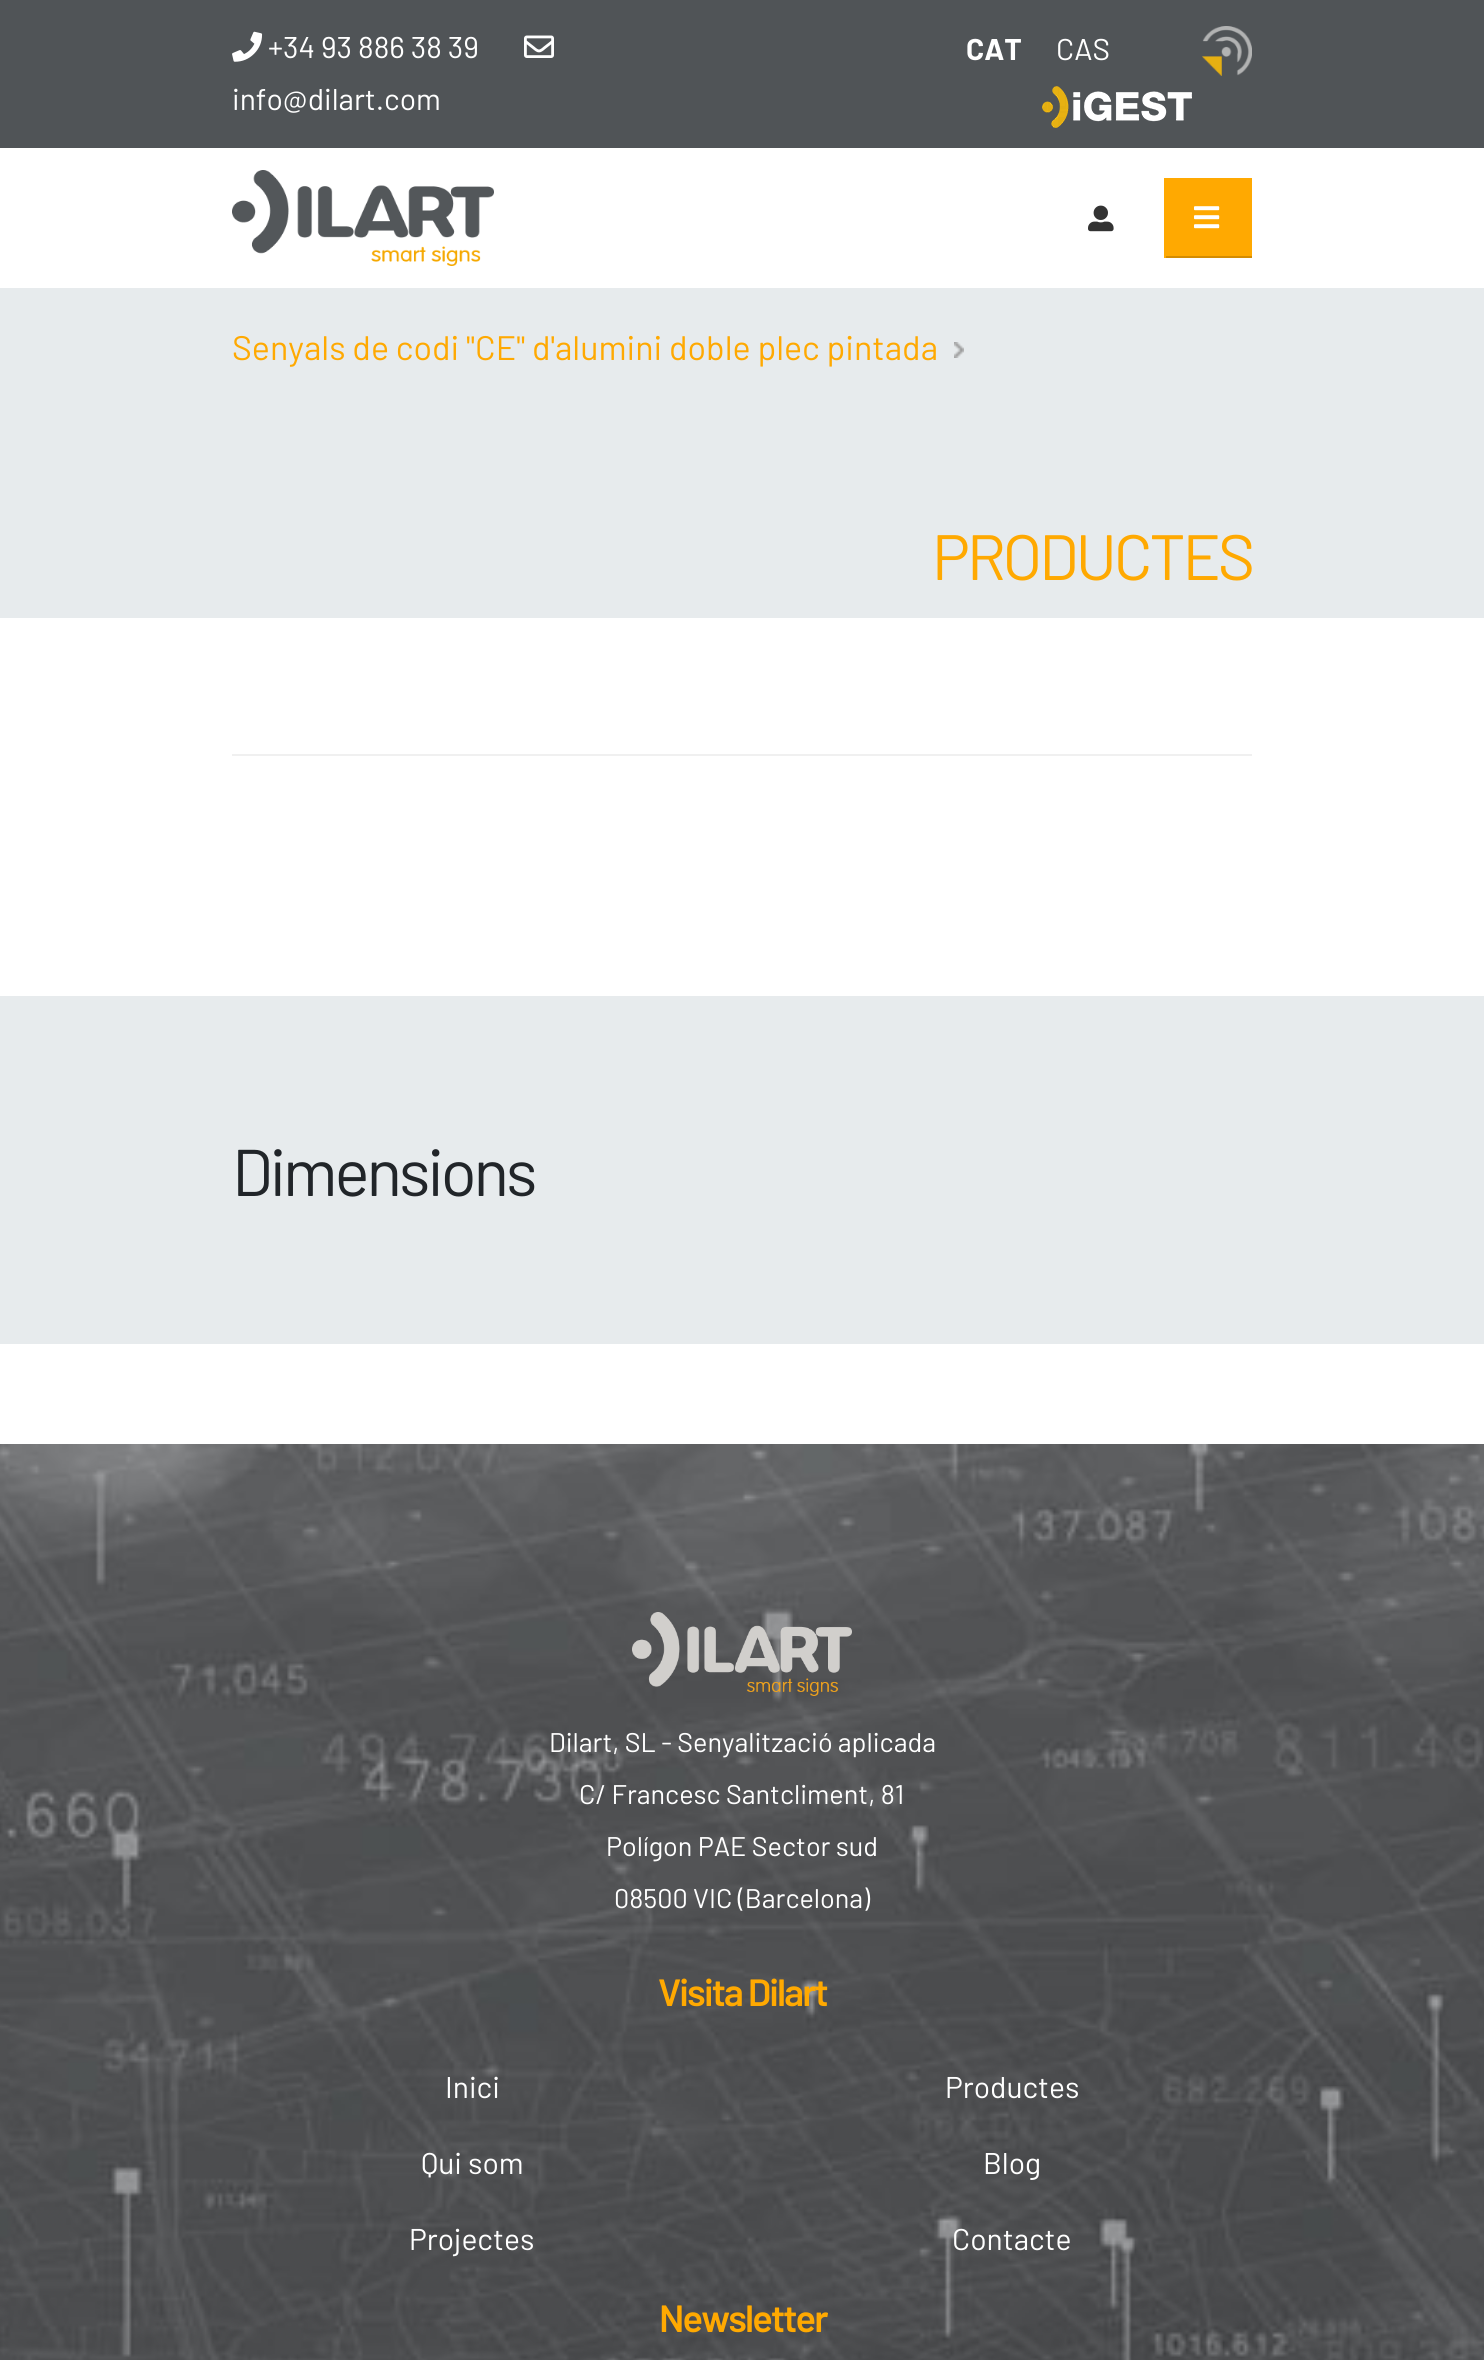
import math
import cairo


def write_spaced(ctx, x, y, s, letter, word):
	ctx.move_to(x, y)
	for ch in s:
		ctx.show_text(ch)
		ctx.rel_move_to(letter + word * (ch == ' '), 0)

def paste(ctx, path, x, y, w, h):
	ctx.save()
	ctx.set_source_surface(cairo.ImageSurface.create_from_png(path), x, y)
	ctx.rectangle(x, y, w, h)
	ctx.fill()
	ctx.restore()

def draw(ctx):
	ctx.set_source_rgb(1, 1, 1)
	ctx.paint()
	ctx.set_source_rgb(0.314, 0.329, 0.341)
	ctx.rectangle(0, 0, 1484, 148)
	ctx.fill()
	paste(ctx, 'media/1.png', 232, 31, 31, 31)
	ctx.select_font_face('Barlow')
	ctx.set_font_size(30)
	ctx.set_source_rgb(1, 1, 1)
	ctx.move_to(268, 58)
	ctx.show_text('+34 93 886 38 39')
	paste(ctx, 'media/2.png', 524, 35, 30, 23)
	ctx.move_to(232, 110)
	ctx.show_text('info@dilart.com')
	ctx.select_font_face('Barlow', cairo.FONT_SLANT_NORMAL, cairo.FONT_WEIGHT_BOLD)
	ctx.move_to(966, 60)
	ctx.show_text('CAT')
	ctx.select_font_face('Barlow')
	ctx.move_to(1056, 60)
	ctx.show_text('CAS')
	paste(ctx, 'media/3.png', 1202, 26, 50, 50)
	paste(ctx, 'media/4.png', 1042, 86, 150, 42)
	paste(ctx, 'media/5.png', 232, 170, 262, 96)
	paste(ctx, 'media/6.png', 1088, 205, 26, 27)
	ctx.set_source_rgb(1, 0.663, 0.004)
	ctx.rectangle(1166, 178, 86, 78)
	ctx.fill()
	ctx.set_source_rgb(0.831, 0.549, 0.004)
	ctx.rectangle(1164, 256, 88, 2)
	ctx.fill()
	ctx.set_source_rgb(1, 0.663, 0.004)
	ctx.rectangle(1164, 178, 2, 80)
	ctx.fill()
	paste(ctx, 'media/7.png', 1194, 206, 26, 23)
	ctx.set_source_rgb(0.906, 0.918, 0.929)
	ctx.rectangle(0, 288, 1484, 330)
	ctx.fill()
	ctx.set_font_size(34)
	ctx.set_source_rgb(1, 0.663, 0.004)
	ctx.move_to(232, 360)
	ctx.show_text('Senyals de codi "CE" d\'alumini doble plec pintada')
	paste(ctx, 'media/8.png', 954, 342, 10, 16)
	ctx.set_font_size(64)
	write_spaced(ctx, 932, 580, 'PRODUCTES', -3.25, 0)
	ctx.set_source_rgb(0.941, 0.941, 0.941)
	ctx.rectangle(232, 754, 1020, 2)
	ctx.fill()
	ctx.set_source_rgb(0.906, 0.918, 0.929)
	ctx.rectangle(0, 996, 1484, 348)
	ctx.fill()
	ctx.set_font_size(66)
	ctx.set_source_rgb(0.129, 0.145, 0.161)
	write_spaced(ctx, 232, 1196, 'Dimensions', -3.25, 0)
	paste(ctx, 'media/9.png', 0, 1444, 1484, 916)
	paste(ctx, 'media/10.png', 632, 1612, 220, 84)
	ctx.set_font_size(27)
	ctx.set_source_rgb(1, 1, 1)
	for x, y, s in [
		(549, 1752, 'Dilart, SL - Senyalització aplicada'),
		(579, 1804, 'C/ Francesc Santcliment, 81'),
		(606, 1856, 'Polígon PAE Sector sud'),
		(614, 1908, '08500 VIC (Barcelona)'),
	]:
		ctx.move_to(x, y)
		ctx.show_text(s)
	ctx.select_font_face('Barlow SemiBold')
	ctx.set_font_size(38)
	ctx.set_source_rgb(1, 0.663, 0.004)
	write_spaced(ctx, 658, 2006, 'Visita Dilart', -1.9, 0)
	ctx.select_font_face('Barlow')
	ctx.set_font_size(30)
	ctx.set_source_rgb(1, 1, 1)
	for x, y, s in [
		(445, 2098, 'Inici'),
		(421, 2174, 'Qui som'),
		(409, 2250, 'Projectes'),
		(945, 2098, 'Productes'),
		(983, 2174, 'Blog'),
		(952, 2250, 'Contacte'),
	]:
		ctx.move_to(x, y)
		ctx.show_text(s)
	ctx.select_font_face('Barlow SemiBold')
	ctx.set_font_size(38)
	ctx.set_source_rgb(1, 0.663, 0.004)
	write_spaced(ctx, 659, 2332, 'Newsletter', -1.9, 0)


surface = cairo.ImageSurface(cairo.FORMAT_RGB24, 1484, 2360)
ctx = cairo.Context(surface)
options = cairo.FontOptions()
options.set_hint_metrics(cairo.HINT_METRICS_OFF)
options.set_hint_style(cairo.HINT_STYLE_NONE)
ctx.set_font_options(options)
ctx.set_miter_limit(4)
draw(ctx)
surface.write_to_png('image.png')
